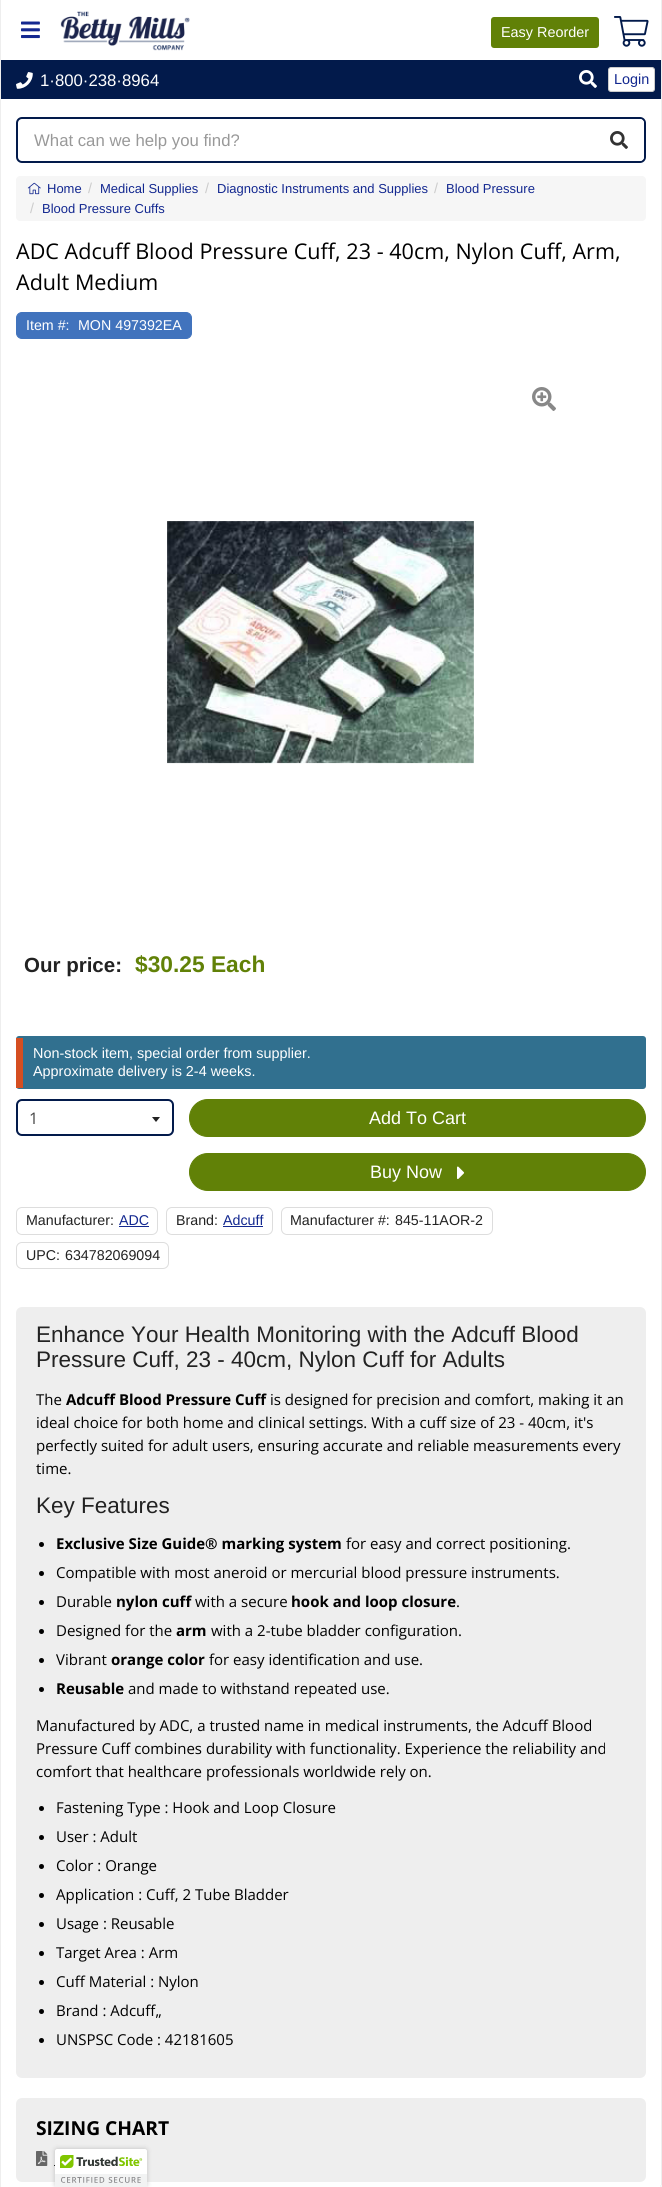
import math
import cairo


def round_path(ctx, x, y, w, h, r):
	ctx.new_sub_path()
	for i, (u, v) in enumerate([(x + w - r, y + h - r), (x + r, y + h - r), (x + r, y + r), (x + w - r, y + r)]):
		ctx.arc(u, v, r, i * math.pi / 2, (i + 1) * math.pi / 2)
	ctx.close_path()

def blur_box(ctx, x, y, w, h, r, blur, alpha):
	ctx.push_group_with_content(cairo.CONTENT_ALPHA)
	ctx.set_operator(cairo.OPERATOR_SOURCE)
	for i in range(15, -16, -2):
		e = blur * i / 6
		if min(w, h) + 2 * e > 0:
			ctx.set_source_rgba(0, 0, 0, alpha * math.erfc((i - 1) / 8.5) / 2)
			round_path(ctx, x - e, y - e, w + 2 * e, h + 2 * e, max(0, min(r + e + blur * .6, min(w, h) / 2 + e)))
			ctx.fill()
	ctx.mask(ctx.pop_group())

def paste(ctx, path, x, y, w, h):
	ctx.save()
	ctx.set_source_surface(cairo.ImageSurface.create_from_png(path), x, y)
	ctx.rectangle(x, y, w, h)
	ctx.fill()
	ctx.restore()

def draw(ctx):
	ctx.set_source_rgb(1, 1, 1)
	ctx.paint()
	ctx.set_source_rgb(0.933, 0.933, 0.933)
	ctx.rectangle(661, 0, 1, 2187)
	ctx.fill()
	ctx.rectangle(0, 0, 1, 2187)
	ctx.fill()
	paste(ctx, 'media/1.png', 21, 21, 19, 18)
	paste(ctx, 'media/2.png', 60, 11, 130, 40)
	ctx.set_source_rgb(0.38, 0.506, 0.031)
	round_path(ctx, 491, 17, 108, 31, 3)
	ctx.fill()
	ctx.select_font_face('Liberation Sans')
	ctx.set_font_size(14.4)
	ctx.set_source_rgb(1, 1, 1)
	ctx.move_to(501, 37)
	ctx.show_text('Easy Reorder')
	paste(ctx, 'media/3.png', 614, 16, 35, 31)
	ctx.set_source_rgb(0.008, 0.102, 0.294)
	ctx.rectangle(1, 60, 660, 39)
	ctx.fill()
	paste(ctx, 'media/4.png', 16, 72, 17, 17)
	ctx.set_font_size(16.75)
	ctx.set_source_rgb(1, 1, 1)
	ctx.move_to(40, 86)
	ctx.show_text('1·800·238·8964')
	paste(ctx, 'media/5.png', 579, 70, 18, 18)
	round_path(ctx, 608.5, 67.5, 46, 24, 2.5)
	ctx.fill_preserve()
	ctx.set_source_rgb(0.8, 0.8, 0.8)
	ctx.set_line_width(1)
	ctx.stroke()
	ctx.set_font_size(14.4)
	ctx.set_source_rgb(0.078, 0.157, 0.565)
	ctx.move_to(614, 84)
	ctx.show_text('Login')
	round_path(ctx, 17, 118, 628, 44, 5)
	ctx.set_source_rgb(0.008, 0.102, 0.294)
	ctx.set_line_width(2)
	ctx.stroke()
	ctx.set_font_size(16.75)
	ctx.set_source_rgb(0.6, 0.6, 0.6)
	ctx.move_to(34, 146)
	ctx.show_text('What can we help you find?')
	ctx.set_source_rgb(1, 1, 1)
	ctx.new_path()
	ctx.move_to(594, 119)
	ctx.line_to(640, 119)
	ctx.curve_to(642, 119, 644, 121, 644, 123)
	ctx.line_to(644, 157)
	ctx.curve_to(644, 159, 642, 161, 640, 161)
	ctx.line_to(594, 161)
	ctx.close_path()
	ctx.fill()
	paste(ctx, 'media/6.png', 610, 131, 18, 18)
	ctx.set_source_rgb(0.961, 0.961, 0.961)
	round_path(ctx, 16, 176, 630, 45, 4)
	ctx.fill()
	paste(ctx, 'media/7.png', 27, 182, 14, 13)
	ctx.set_font_size(13)
	ctx.set_source_rgb(0.078, 0.157, 0.565)
	ctx.move_to(47, 193)
	ctx.show_text('Home')
	ctx.set_font_size(14.4)
	ctx.set_source_rgb(0.8, 0.8, 0.8)
	ctx.move_to(88, 193)
	ctx.show_text('/')
	ctx.set_font_size(13)
	ctx.set_source_rgb(0.078, 0.157, 0.565)
	ctx.move_to(100, 193)
	ctx.show_text('Medical Supplies')
	ctx.set_font_size(14.4)
	ctx.set_source_rgb(0.8, 0.8, 0.8)
	ctx.move_to(205, 193)
	ctx.show_text('/')
	ctx.set_font_size(13)
	ctx.set_source_rgb(0.078, 0.157, 0.565)
	ctx.move_to(217, 193)
	ctx.show_text('Diagnostic Instruments and Supplies')
	ctx.set_font_size(14.4)
	ctx.set_source_rgb(0.8, 0.8, 0.8)
	ctx.move_to(434, 193)
	ctx.show_text('/')
	ctx.set_font_size(13)
	ctx.set_source_rgb(0.078, 0.157, 0.565)
	ctx.move_to(446, 193)
	ctx.show_text('Blood Pressure')
	ctx.set_font_size(14.4)
	ctx.set_source_rgb(0.8, 0.8, 0.8)
	ctx.move_to(30, 213)
	ctx.show_text('/')
	ctx.set_font_size(13)
	ctx.set_source_rgb(0.078, 0.157, 0.565)
	ctx.move_to(42, 213)
	ctx.show_text('Blood Pressure Cuffs')
	ctx.select_font_face('Open Sans')
	ctx.set_font_size(21.6)
	ctx.set_source_rgb(0, 0, 0)
	ctx.move_to(16, 259)
	ctx.show_text('ADC Adcuff Blood Pressure Cuff, 23 - 40cm, Nylon Cuff, Arm,')
	ctx.move_to(16, 290)
	ctx.show_text('Adult Medium')
	ctx.set_source_rgb(0.255, 0.451, 0.741)
	round_path(ctx, 16.5, 312.5, 175, 26, 5.5)
	ctx.fill_preserve()
	ctx.set_line_width(1)
	ctx.stroke()
	ctx.select_font_face('Liberation Sans')
	ctx.set_font_size(14.25)
	ctx.set_source_rgb(1, 1, 1)
	ctx.move_to(26, 330)
	ctx.show_text('Item #:')
	ctx.move_to(78, 330)
	ctx.show_text('MON 497392EA')
	paste(ctx, 'media/8.png', 532, 387, 24, 24)
	paste(ctx, 'media/9.png', 167, 521, 307, 243)
	ctx.select_font_face('Liberation Sans', cairo.FONT_SLANT_NORMAL, cairo.FONT_WEIGHT_BOLD)
	ctx.set_font_size(20.5)
	ctx.set_source_rgb(0.133, 0.133, 0.133)
	ctx.move_to(24, 972)
	ctx.show_text('Our price:')
	ctx.set_font_size(22.75)
	ctx.set_source_rgb(0.38, 0.506, 0.031)
	ctx.move_to(135, 972)
	ctx.show_text('$30.25 Each')
	ctx.set_source_rgb(0.192, 0.439, 0.561)
	round_path(ctx, 16, 1036, 630, 53, 3)
	ctx.fill()
	ctx.set_source_rgb(0.835, 0.306, 0.129)
	ctx.rectangle(16, 1038, 7, 50)
	ctx.fill()
	ctx.select_font_face('Liberation Sans')
	ctx.set_font_size(14.4)
	ctx.set_source_rgb(1, 1, 1)
	ctx.move_to(33, 1058)
	ctx.show_text('Non-stock item, special order from supplier.')
	ctx.move_to(33, 1076)
	ctx.show_text('Approximate delivery is 2-4 weeks.')
	round_path(ctx, 17, 1100, 156, 35, 5)
	ctx.set_source_rgb(0.008, 0.102, 0.294)
	ctx.set_line_width(2)
	ctx.stroke()
	ctx.select_font_face('Open Sans')
	ctx.set_font_size(16)
	ctx.set_source_rgb(0.267, 0.267, 0.267)
	ctx.move_to(29, 1124)
	ctx.show_text('1')
	ctx.set_source_rgb(0.133, 0.133, 0.133)
	ctx.new_path()
	ctx.move_to(152, 1117)
	ctx.line_to(160, 1117)
	ctx.line_to(156, 1122)
	ctx.close_path()
	ctx.fill()
	ctx.set_source_rgb(0.38, 0.506, 0.031)
	round_path(ctx, 189.5, 1099.5, 456, 37, 18.5)
	ctx.fill_preserve()
	ctx.set_line_width(1)
	ctx.stroke()
	ctx.select_font_face('Liberation Sans')
	ctx.set_font_size(18)
	ctx.set_source_rgb(1, 1, 1)
	ctx.move_to(369, 1124)
	ctx.show_text('Add To Cart')
	ctx.set_source_rgb(0.38, 0.506, 0.031)
	round_path(ctx, 189.5, 1153.5, 456, 37, 18.5)
	ctx.fill_preserve()
	ctx.stroke()
	ctx.set_source_rgb(1, 1, 1)
	ctx.move_to(370, 1178)
	ctx.show_text('Buy Now')
	paste(ctx, 'media/10.png', 457, 1166, 8, 13)
	round_path(ctx, 16.5, 1207.5, 141, 27, 5.5)
	ctx.set_source_rgb(0.867, 0.867, 0.867)
	ctx.stroke()
	ctx.set_font_size(14.25)
	ctx.set_source_rgb(0.133, 0.133, 0.133)
	ctx.move_to(26, 1225)
	ctx.show_text('Manufacturer:')
	ctx.set_source_rgb(0.078, 0.157, 0.565)
	ctx.move_to(119, 1225)
	ctx.show_text('ADC')
	ctx.rectangle(119, 1226, 30, 1)
	ctx.fill()
	round_path(ctx, 166.5, 1207.5, 106, 27, 5.5)
	ctx.set_source_rgb(0.867, 0.867, 0.867)
	ctx.stroke()
	ctx.set_source_rgb(0.133, 0.133, 0.133)
	ctx.move_to(176, 1225)
	ctx.show_text('Brand:')
	ctx.set_source_rgb(0.078, 0.157, 0.565)
	ctx.move_to(223, 1225)
	ctx.show_text('Adcuff')
	ctx.rectangle(223, 1226, 40, 1)
	ctx.fill()
	round_path(ctx, 281.5, 1207.5, 211, 27, 5.5)
	ctx.set_source_rgb(0.867, 0.867, 0.867)
	ctx.stroke()
	ctx.set_source_rgb(0.133, 0.133, 0.133)
	ctx.move_to(290, 1225)
	ctx.show_text('Manufacturer #:')
	ctx.move_to(395, 1225)
	ctx.show_text('845-11AOR-2')
	round_path(ctx, 16.5, 1242.5, 152, 26, 5.5)
	ctx.set_source_rgb(0.867, 0.867, 0.867)
	ctx.stroke()
	ctx.set_source_rgb(0.133, 0.133, 0.133)
	ctx.move_to(26, 1260)
	ctx.show_text('UPC:')
	ctx.move_to(65, 1260)
	ctx.show_text('634782069094')
	ctx.set_source_rgb(0.933, 0.933, 0.933)
	round_path(ctx, 16, 1307, 630, 771, 6)
	ctx.fill()
	ctx.set_font_size(22.5)
	ctx.set_source_rgb(0.133, 0.133, 0.133)
	ctx.move_to(36, 1342)
	ctx.show_text('Enhance Your Health Monitoring with the Adcuff Blood')
	ctx.move_to(36, 1367)
	ctx.show_text('Pressure Cuff, 23 - 40cm, Nylon Cuff for Adults')
	ctx.select_font_face('Open Sans')
	ctx.set_font_size(15)
	ctx.set_source_rgb(0, 0, 0)
	ctx.move_to(36, 1405)
	ctx.show_text('The')
	ctx.select_font_face('Open Sans', cairo.FONT_SLANT_NORMAL, cairo.FONT_WEIGHT_BOLD)
	ctx.move_to(66, 1405)
	ctx.show_text('Adcuff Blood Pressure Cuff')
	ctx.select_font_face('Open Sans')
	for x, y, s in [
		(270, 1405, 'is designed for precision and comfort, making it an'),
		(36, 1428, 'ideal choice for both home and clinical settings. With a cuff size of 23 - 40cm, it\'s'),
		(36, 1451, 'perfectly suited for adult users, ensuring accurate and reliable measurements every'),
		(36, 1474, 'time.'),
	]:
		ctx.move_to(x, y)
		ctx.show_text(s)
	ctx.select_font_face('Liberation Sans')
	ctx.set_font_size(22.5)
	ctx.set_source_rgb(0.133, 0.133, 0.133)
	ctx.move_to(36, 1513)
	ctx.show_text('Key Features')
	ctx.set_source_rgb(0, 0, 0)
	ctx.new_path()
	ctx.arc(41.5, 1544.5, 2.5, 0, 2 * math.pi)
	ctx.fill()
	ctx.select_font_face('Open Sans', cairo.FONT_SLANT_NORMAL, cairo.FONT_WEIGHT_BOLD)
	ctx.set_font_size(15)
	ctx.move_to(56, 1549)
	ctx.show_text('Exclusive Size Guide® marking system')
	ctx.select_font_face('Open Sans')
	ctx.move_to(346, 1549)
	ctx.show_text('for easy and correct positioning.')
	ctx.new_path()
	ctx.arc(41.5, 1573.5, 2.5, 0, 2 * math.pi)
	ctx.fill()
	ctx.move_to(56, 1578)
	ctx.show_text('Compatible with most aneroid or mercurial blood pressure instruments.')
	ctx.new_path()
	ctx.arc(41.5, 1602.5, 2.5, 0, 2 * math.pi)
	ctx.fill()
	ctx.move_to(56, 1607)
	ctx.show_text('Durable')
	ctx.select_font_face('Open Sans', cairo.FONT_SLANT_NORMAL, cairo.FONT_WEIGHT_BOLD)
	ctx.move_to(116, 1607)
	ctx.show_text('nylon cuff')
	ctx.select_font_face('Open Sans')
	ctx.move_to(195, 1607)
	ctx.show_text('with a secure')
	ctx.select_font_face('Open Sans', cairo.FONT_SLANT_NORMAL, cairo.FONT_WEIGHT_BOLD)
	ctx.move_to(291, 1607)
	ctx.show_text('hook and loop closure')
	ctx.select_font_face('Open Sans')
	ctx.move_to(456, 1607)
	ctx.show_text('.')
	ctx.new_path()
	ctx.arc(41.5, 1631.5, 2.5, 0, 2 * math.pi)
	ctx.fill()
	ctx.move_to(56, 1636)
	ctx.show_text('Designed for the')
	ctx.select_font_face('Open Sans', cairo.FONT_SLANT_NORMAL, cairo.FONT_WEIGHT_BOLD)
	ctx.move_to(176, 1636)
	ctx.show_text('arm')
	ctx.select_font_face('Open Sans')
	ctx.move_to(211, 1636)
	ctx.show_text('with a 2-tube bladder configuration.')
	ctx.new_path()
	ctx.arc(41.5, 1660.5, 2.5, 0, 2 * math.pi)
	ctx.fill()
	ctx.move_to(56, 1665)
	ctx.show_text('Vibrant')
	ctx.select_font_face('Open Sans', cairo.FONT_SLANT_NORMAL, cairo.FONT_WEIGHT_BOLD)
	ctx.move_to(111, 1665)
	ctx.show_text('orange color')
	ctx.select_font_face('Open Sans')
	ctx.move_to(209, 1665)
	ctx.show_text('for easy identification and use.')
	ctx.new_path()
	ctx.arc(41.5, 1689.5, 2.5, 0, 2 * math.pi)
	ctx.fill()
	ctx.select_font_face('Open Sans', cairo.FONT_SLANT_NORMAL, cairo.FONT_WEIGHT_BOLD)
	ctx.move_to(56, 1694)
	ctx.show_text('Reusable')
	ctx.select_font_face('Open Sans')
	for x, y, s in [
		(128, 1694, 'and made to withstand repeated use.'),
		(36, 1731, 'Manufactured by ADC, a trusted name in medical instruments, the Adcuff Blood'),
		(36, 1754, 'Pressure Cuff combines durability with functionality. Experience the reliability and'),
		(36, 1777, 'comfort that healthcare professionals worldwide rely on.'),
	]:
		ctx.move_to(x, y)
		ctx.show_text(s)
	ctx.new_path()
	ctx.arc(41.5, 1808.5, 2.5, 0, 2 * math.pi)
	ctx.fill()
	ctx.move_to(56, 1813)
	ctx.show_text('Fastening Type : Hook and Loop Closure')
	ctx.new_path()
	ctx.arc(41.5, 1837.5, 2.5, 0, 2 * math.pi)
	ctx.fill()
	ctx.move_to(56, 1842)
	ctx.show_text('User : Adult')
	ctx.new_path()
	ctx.arc(41.5, 1866.5, 2.5, 0, 2 * math.pi)
	ctx.fill()
	ctx.move_to(56, 1871)
	ctx.show_text('Color : Orange')
	ctx.new_path()
	ctx.arc(41.5, 1895.5, 2.5, 0, 2 * math.pi)
	ctx.fill()
	ctx.move_to(56, 1900)
	ctx.show_text('Application : Cuff, 2 Tube Bladder')
	ctx.new_path()
	ctx.arc(41.5, 1924.5, 2.5, 0, 2 * math.pi)
	ctx.fill()
	ctx.move_to(56, 1929)
	ctx.show_text('Usage : Reusable')
	ctx.new_path()
	ctx.arc(41.5, 1953.5, 2.5, 0, 2 * math.pi)
	ctx.fill()
	ctx.move_to(56, 1958)
	ctx.show_text('Target Area : Arm')
	ctx.new_path()
	ctx.arc(41.5, 1982.5, 2.5, 0, 2 * math.pi)
	ctx.fill()
	ctx.move_to(56, 1987)
	ctx.show_text('Cuff Material : Nylon')
	ctx.new_path()
	ctx.arc(41.5, 2011.5, 2.5, 0, 2 * math.pi)
	ctx.fill()
	ctx.move_to(56, 2016)
	ctx.show_text('Brand : Adcuff„')
	ctx.new_path()
	ctx.arc(41.5, 2040.5, 2.5, 0, 2 * math.pi)
	ctx.fill()
	ctx.move_to(56, 2045)
	ctx.show_text('UNSPSC Code : 42181605')
	ctx.set_source_rgb(0.933, 0.933, 0.933)
	round_path(ctx, 16, 2098, 630, 84, 6)
	ctx.fill()
	ctx.select_font_face('Open Sans', cairo.FONT_SLANT_NORMAL, cairo.FONT_WEIGHT_BOLD)
	ctx.set_font_size(19.25)
	ctx.set_source_rgb(0, 0, 0)
	ctx.move_to(36, 2135)
	ctx.show_text('SIZING CHART')
	paste(ctx, 'media/11.png', 36, 2151, 12, 15)
	ctx.set_source_rgb(0.133, 0.133, 0.133)
	ctx.rectangle(54, 2165, 1, 1)
	ctx.fill()
	ctx.set_source_rgb(0, 0, 0)
	blur_box(ctx, 55, 2149, 92, 38, 2, 2.5, 0.2)
	ctx.set_source_rgb(1, 1, 1)
	ctx.new_path()
	ctx.move_to(57, 2149)
	ctx.line_to(145, 2149)
	ctx.curve_to(146, 2149, 147, 2150, 147, 2151)
	ctx.line_to(147, 2187)
	ctx.line_to(55, 2187)
	ctx.line_to(55, 2151)
	ctx.curve_to(55, 2150, 56, 2149, 57, 2149)
	ctx.close_path()
	ctx.fill()
	paste(ctx, 'media/12.png', 55, 2155, 92, 32)
	ctx.set_source_rgb(0.961, 0.961, 0.961)
	ctx.rectangle(660, 2185, 2, 2)
	ctx.fill()


surface = cairo.ImageSurface(cairo.FORMAT_RGB24, 662, 2187)
ctx = cairo.Context(surface)
options = cairo.FontOptions()
options.set_hint_metrics(cairo.HINT_METRICS_OFF)
options.set_hint_style(cairo.HINT_STYLE_NONE)
ctx.set_font_options(options)
ctx.set_miter_limit(4)
draw(ctx)
surface.write_to_png('image.png')
